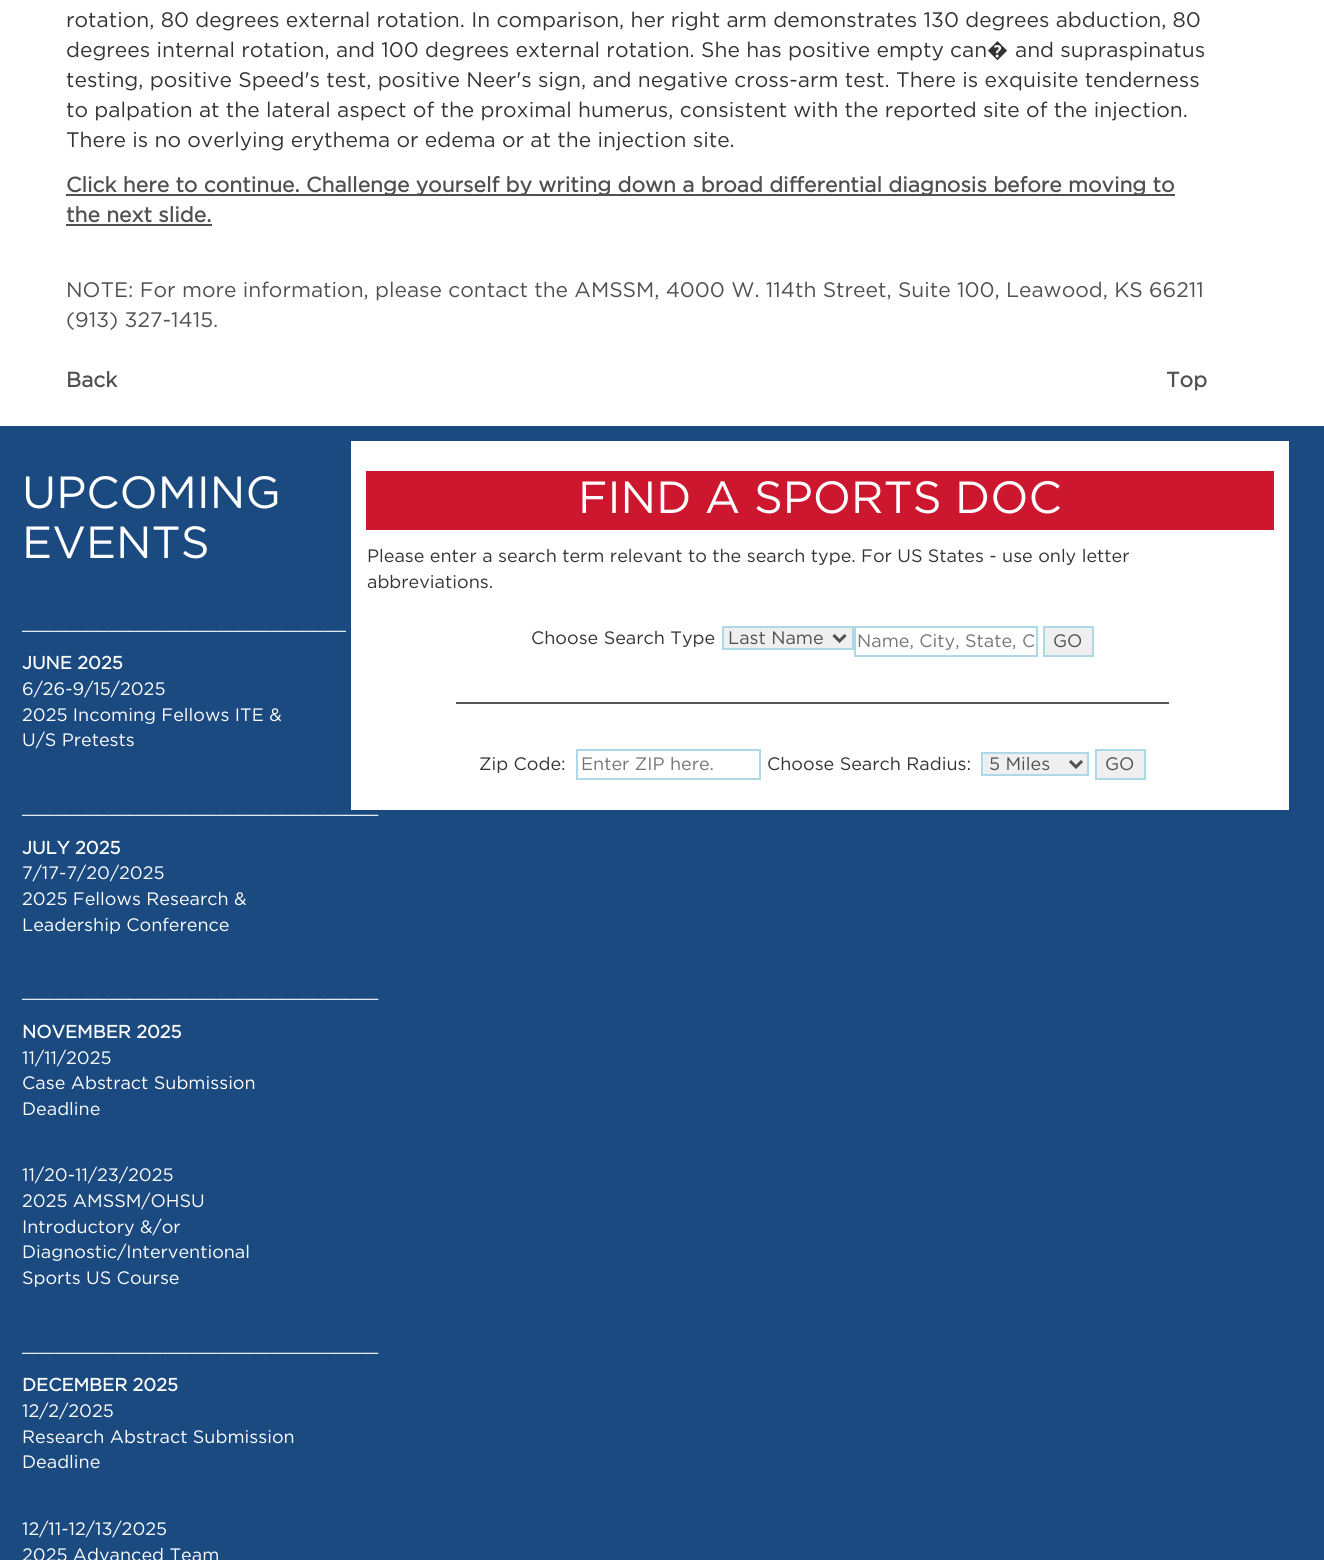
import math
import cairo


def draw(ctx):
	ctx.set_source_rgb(1, 1, 1)
	ctx.paint()
	ctx.select_font_face('Gotham')
	ctx.set_font_size(21)
	ctx.set_source_rgb(0.2, 0.2, 0.2)
	ctx.move_to(66, 27)
	ctx.show_text('rotation, 80 degrees external rotation. In comparison, her right arm demonstrates 130 degrees abduction, 80')
	ctx.move_to(66, 57)
	ctx.show_text('degrees internal rotation, and 100 degrees external rotation. She has positive empty can')
	ctx.select_font_face('Noto Sans')
	ctx.move_to(987, 57)
	ctx.show_text('�')
	ctx.select_font_face('Gotham')
	for x, y, s in [
		(1015, 57, 'and supraspinatus'),
		(66, 87, 'testing, positive Speed\'s test, positive Neer\'s sign, and negative cross-arm test. There is exquisite tenderness'),
		(66, 117, 'to palpation at the lateral aspect of the proximal humerus, consistent with the reported site of the injection.'),
		(66, 147, 'There is no overlying erythema or edema or at the injection site.'),
	]:
		ctx.move_to(x, y)
		ctx.show_text(s)
	ctx.set_source_rgb(0.314, 0.314, 0.314)
	ctx.rectangle(66, 194, 1109, 2)
	ctx.fill()
	ctx.select_font_face('Gotham', cairo.FONT_SLANT_NORMAL, cairo.FONT_WEIGHT_BOLD)
	ctx.move_to(66, 192)
	ctx.show_text('Click here to continue. Challenge yourself by writing down a broad differential diagnosis before moving to')
	ctx.move_to(66, 222)
	ctx.show_text('the next slide.')
	ctx.rectangle(66, 224, 146, 2)
	ctx.fill()
	ctx.select_font_face('Gotham')
	ctx.move_to(66, 297)
	ctx.show_text('NOTE: For more information, please contact the AMSSM, 4000 W. 114th Street, Suite 100, Leawood, KS 66211')
	ctx.move_to(66, 327)
	ctx.show_text('(913) 327-1415.')
	ctx.select_font_face('Gotham', cairo.FONT_SLANT_NORMAL, cairo.FONT_WEIGHT_BOLD)
	ctx.move_to(66, 387)
	ctx.show_text('Back')
	ctx.move_to(1166, 387)
	ctx.show_text('Top')
	ctx.set_source_rgb(0.106, 0.29, 0.502)
	ctx.rectangle(0, 426, 1324, 1134)
	ctx.fill()
	ctx.select_font_face('Gotham')
	ctx.set_font_size(45)
	ctx.set_source_rgb(1, 1, 1)
	ctx.move_to(22, 508)
	ctx.show_text('UPCOMING')
	ctx.move_to(22, 558)
	ctx.show_text('EVENTS')
	ctx.set_font_size(18)
	ctx.move_to(22, 629)
	ctx.show_text('______________________________')
	ctx.select_font_face('Gotham', cairo.FONT_SLANT_NORMAL, cairo.FONT_WEIGHT_BOLD)
	ctx.move_to(22, 669)
	ctx.show_text('JUNE 2025')
	ctx.select_font_face('Gotham')
	for x, y, s in [
		(22, 695, '6/26-9/15/2025'),
		(22, 721, '2025 Incoming Fellows ITE &'),
		(22, 746, 'U/S Pretests'),
		(22, 813, '_________________________________'),
	]:
		ctx.move_to(x, y)
		ctx.show_text(s)
	ctx.select_font_face('Gotham', cairo.FONT_SLANT_NORMAL, cairo.FONT_WEIGHT_BOLD)
	ctx.move_to(22, 854)
	ctx.show_text('JULY 2025')
	ctx.select_font_face('Gotham')
	for x, y, s in [
		(22, 879, '7/17-7/20/2025'),
		(22, 905, '2025 Fellows Research &'),
		(22, 931, 'Leadership Conference'),
		(22, 997, '_________________________________'),
	]:
		ctx.move_to(x, y)
		ctx.show_text(s)
	ctx.select_font_face('Gotham', cairo.FONT_SLANT_NORMAL, cairo.FONT_WEIGHT_BOLD)
	ctx.move_to(22, 1038)
	ctx.show_text('NOVEMBER 2025')
	ctx.select_font_face('Gotham')
	for x, y, s in [
		(22, 1064, '11/11/2025'),
		(22, 1089, 'Case Abstract Submission'),
		(22, 1115, 'Deadline'),
		(22, 1181, '11/20-11/23/2025'),
		(22, 1207, '2025 AMSSM/OHSU'),
		(22, 1233, 'Introductory &/or'),
		(22, 1258, 'Diagnostic/Interventional'),
		(22, 1284, 'Sports US Course'),
		(22, 1351, '_________________________________'),
	]:
		ctx.move_to(x, y)
		ctx.show_text(s)
	ctx.select_font_face('Gotham', cairo.FONT_SLANT_NORMAL, cairo.FONT_WEIGHT_BOLD)
	ctx.move_to(22, 1391)
	ctx.show_text('DECEMBER 2025')
	ctx.select_font_face('Gotham')
	for x, y, s in [
		(22, 1417, '12/2/2025'),
		(22, 1443, 'Research Abstract Submission'),
		(22, 1468, 'Deadline'),
		(22, 1535, '12/11-12/13/2025'),
		(22, 1561, '2025 Advanced Team'),
	]:
		ctx.move_to(x, y)
		ctx.show_text(s)
	ctx.rectangle(351, 441, 938, 369)
	ctx.fill()
	ctx.set_source_rgb(0.8, 0.09, 0.18)
	ctx.rectangle(366, 471, 908, 59)
	ctx.fill()
	ctx.set_font_size(45)
	ctx.set_source_rgb(1, 1, 1)
	ctx.move_to(578, 513)
	ctx.show_text('FIND A SPORTS DOC')
	ctx.set_font_size(18)
	ctx.set_source_rgb(0.2, 0.2, 0.2)
	for x, y, s in [
		(367, 562, 'Please enter a search term relevant to the search type. For US States - use only letter'),
		(367, 588, 'abbreviations.'),
		(531, 644, 'Choose Search Type'),
	]:
		ctx.move_to(x, y)
		ctx.show_text(s)
	ctx.set_source_rgb(0.937, 0.937, 0.937)
	ctx.rectangle(723, 627, 130, 22)
	ctx.fill_preserve()
	ctx.set_source_rgb(0.678, 0.847, 0.902)
	ctx.stroke()
	ctx.new_path()
	ctx.move_to(833.5, 635)
	ctx.line_to(839.5, 641)
	ctx.line_to(845.5, 635)
	ctx.set_source_rgb(0.314, 0.314, 0.314)
	ctx.set_line_width(3)
	ctx.stroke()
	ctx.move_to(728, 644)
	ctx.show_text('Last Name')
	ctx.rectangle(855, 627, 182, 29)
	ctx.set_source_rgb(0.678, 0.847, 0.902)
	ctx.set_line_width(2)
	ctx.stroke()
	ctx.save()
	ctx.rectangle(858, 630, 176, 21)
	ctx.clip()
	ctx.set_source_rgb(0.459, 0.459, 0.459)
	ctx.move_to(857, 647)
	ctx.show_text('Name, City, State, C')
	ctx.restore()
	ctx.set_source_rgb(0.937, 0.937, 0.937)
	ctx.rectangle(1044, 627, 49, 29)
	ctx.fill_preserve()
	ctx.set_source_rgb(0.678, 0.847, 0.902)
	ctx.stroke()
	ctx.set_source_rgb(0.314, 0.314, 0.314)
	ctx.move_to(1053, 647)
	ctx.show_text('GO')
	ctx.set_source_rgb(0.333, 0.333, 0.333)
	ctx.rectangle(456, 702, 713, 2)
	ctx.fill()
	ctx.set_source_rgb(0.2, 0.2, 0.2)
	ctx.move_to(479, 770)
	ctx.show_text('Zip Code:')
	ctx.rectangle(577, 750, 183, 29)
	ctx.set_source_rgb(0.678, 0.847, 0.902)
	ctx.stroke()
	ctx.set_source_rgb(0.459, 0.459, 0.459)
	ctx.move_to(581, 770)
	ctx.show_text('Enter ZIP here.')
	ctx.set_source_rgb(0.2, 0.2, 0.2)
	ctx.move_to(767, 770)
	ctx.show_text('Choose Search Radius:')
	ctx.set_source_rgb(0.937, 0.937, 0.937)
	ctx.rectangle(982, 753, 106, 22)
	ctx.fill_preserve()
	ctx.set_source_rgb(0.678, 0.847, 0.902)
	ctx.stroke()
	ctx.new_path()
	ctx.move_to(1070, 761)
	ctx.line_to(1076, 767)
	ctx.line_to(1082, 761)
	ctx.set_source_rgb(0.314, 0.314, 0.314)
	ctx.set_line_width(3)
	ctx.stroke()
	ctx.move_to(989, 770)
	ctx.show_text('5 Miles')
	ctx.set_source_rgb(0.937, 0.937, 0.937)
	ctx.rectangle(1096, 750, 49, 29)
	ctx.fill_preserve()
	ctx.set_source_rgb(0.678, 0.847, 0.902)
	ctx.set_line_width(2)
	ctx.stroke()
	ctx.set_source_rgb(0.314, 0.314, 0.314)
	ctx.move_to(1105, 770)
	ctx.show_text('GO')


surface = cairo.ImageSurface(cairo.FORMAT_RGB24, 1324, 1560)
ctx = cairo.Context(surface)
options = cairo.FontOptions()
options.set_hint_metrics(cairo.HINT_METRICS_OFF)
options.set_hint_style(cairo.HINT_STYLE_NONE)
ctx.set_font_options(options)
ctx.set_miter_limit(4)
draw(ctx)
surface.write_to_png('image.png')
